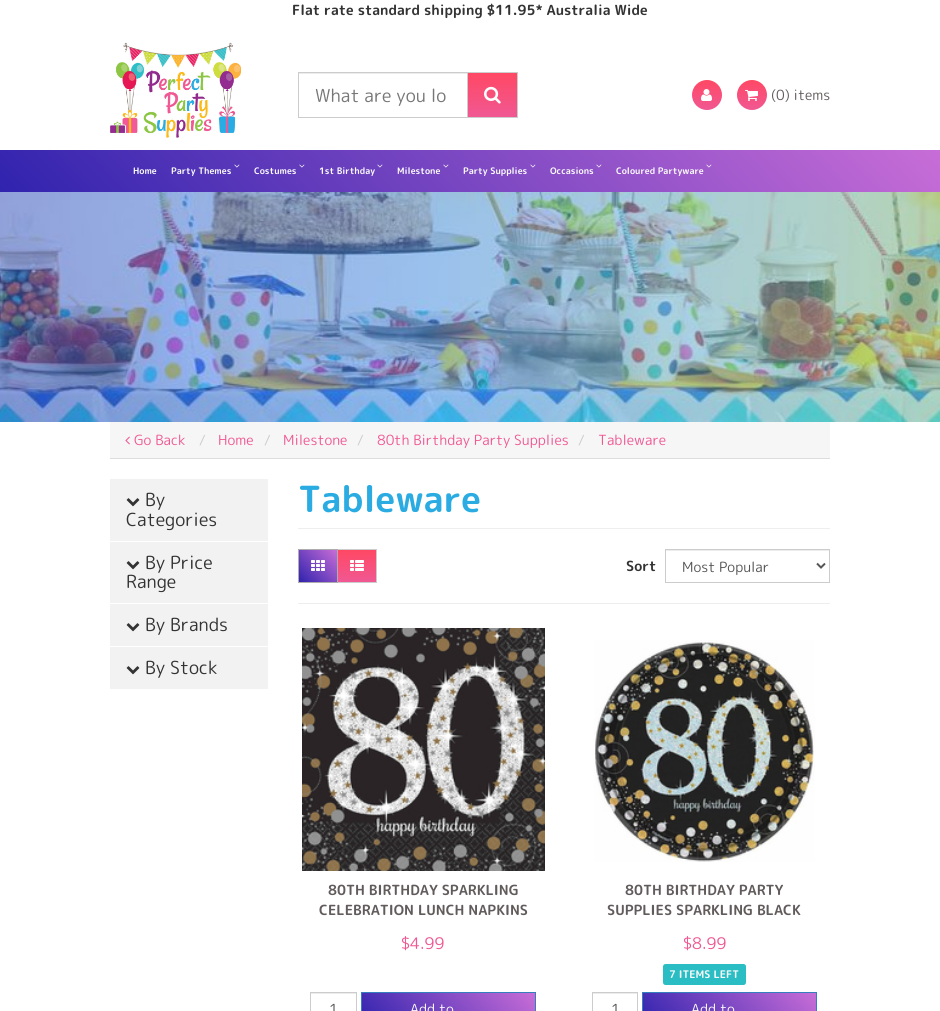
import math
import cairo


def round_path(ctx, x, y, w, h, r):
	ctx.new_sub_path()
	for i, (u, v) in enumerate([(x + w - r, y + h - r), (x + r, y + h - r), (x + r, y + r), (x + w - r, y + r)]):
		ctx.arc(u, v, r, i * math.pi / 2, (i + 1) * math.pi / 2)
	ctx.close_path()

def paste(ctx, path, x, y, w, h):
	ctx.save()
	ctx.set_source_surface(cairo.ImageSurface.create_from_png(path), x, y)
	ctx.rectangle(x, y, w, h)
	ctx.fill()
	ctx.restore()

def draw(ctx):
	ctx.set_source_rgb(1, 1, 1)
	ctx.paint()
	ctx.select_font_face('Rounded Mplus 1c Bold', cairo.FONT_SLANT_NORMAL, cairo.FONT_WEIGHT_BOLD)
	ctx.set_font_size(14)
	ctx.set_source_rgb(0.2, 0.2, 0.2)
	ctx.move_to(292, 15)
	ctx.show_text('Flat rate standard shipping $11.95* Australia Wide')
	paste(ctx, 'media/1.png', 110, 42, 131, 96)
	ctx.set_source_rgb(0.925, 0.925, 0.925)
	ctx.rectangle(299, 73, 168, 1)
	ctx.fill()
	gradient = cairo.LinearGradient(493, 73, 493, 117)
	gradient.add_color_stop_rgba(0, 1, 0.282, 0.392, 1)
	gradient.add_color_stop_rgba(1, 0.941, 0.345, 0.576, 1)
	ctx.set_source(gradient)
	ctx.rectangle(468, 73, 49, 44)
	ctx.fill()
	ctx.rectangle(467.5, 72.5, 50, 45)
	ctx.set_source_rgb(0.8, 0.8, 0.8)
	ctx.set_line_width(1)
	ctx.stroke()
	ctx.rectangle(298.5, 72.5, 169, 45)
	ctx.stroke()
	ctx.select_font_face('Rounded Mplus 1c')
	ctx.set_font_size(18)
	ctx.set_source_rgb(0.467, 0.467, 0.467)
	ctx.move_to(315, 102)
	ctx.show_text('What are you lo')
	paste(ctx, 'media/2.png', 484, 86, 17, 18)
	gradient = cairo.LinearGradient(707, 80, 707, 110)
	gradient.add_color_stop_rgba(0, 1, 0.282, 0.392, 1)
	gradient.add_color_stop_rgba(1, 0.941, 0.345, 0.576, 1)
	ctx.set_source(gradient)
	ctx.arc(707, 95, 15, 0, 2 * math.pi)
	ctx.fill()
	paste(ctx, 'media/3.png', 701, 89, 11, 12)
	gradient = cairo.LinearGradient(752, 80, 752, 110)
	gradient.add_color_stop_rgba(0, 1, 0.282, 0.392, 1)
	gradient.add_color_stop_rgba(1, 0.941, 0.345, 0.576, 1)
	ctx.set_source(gradient)
	ctx.arc(752, 95, 15, 0, 2 * math.pi)
	ctx.fill()
	paste(ctx, 'media/4.png', 745, 90, 13, 11)
	ctx.set_font_size(14)
	ctx.set_source_rgb(0.384, 0.357, 0.361)
	ctx.move_to(771, 100)
	ctx.show_text('(0) items')
	gradient = cairo.LinearGradient(724, -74, 216, 416)
	gradient.add_color_stop_rgba(0, 0.784, 0.427, 0.843, 1)
	gradient.add_color_stop_rgba(1, 0.188, 0.137, 0.682, 1)
	ctx.set_source(gradient)
	ctx.rectangle(0, 150, 940, 42)
	ctx.fill()
	ctx.select_font_face('Rounded Mplus 1c Bold', cairo.FONT_SLANT_NORMAL, cairo.FONT_WEIGHT_BOLD)
	ctx.set_font_size(9)
	ctx.set_source_rgb(0.98, 0.98, 0.98)
	ctx.move_to(133, 174)
	ctx.show_text('Home')
	paste(ctx, 'media/5.png', 234, 164, 6, 4)
	ctx.move_to(171, 174)
	ctx.show_text('Party Themes')
	paste(ctx, 'media/6.png', 299, 164, 6, 4)
	ctx.move_to(254, 174)
	ctx.show_text('Costumes')
	paste(ctx, 'media/7.png', 377, 164, 6, 4)
	ctx.move_to(319, 174)
	ctx.show_text('1st Birthday')
	paste(ctx, 'media/8.png', 443, 164, 6, 4)
	ctx.move_to(397, 174)
	ctx.show_text('Milestone')
	paste(ctx, 'media/9.png', 530, 164, 6, 4)
	ctx.move_to(463, 174)
	ctx.show_text('Party Supplies')
	paste(ctx, 'media/10.png', 596, 164, 6, 4)
	ctx.move_to(550, 174)
	ctx.show_text('Occasions')
	paste(ctx, 'media/11.png', 706, 164, 6, 4)
	ctx.move_to(616, 174)
	ctx.show_text('Coloured Partyware')
	paste(ctx, 'media/12.png', 0, 192, 940, 230)
	ctx.set_source_rgb(0.961, 0.961, 0.961)
	ctx.rectangle(110, 422, 720, 36)
	ctx.fill()
	ctx.set_source_rgb(0.867, 0.867, 0.867)
	ctx.rectangle(110, 458, 720, 1)
	ctx.fill()
	paste(ctx, 'media/13.png', 125, 436, 5, 9)
	ctx.select_font_face('Rounded Mplus 1c')
	ctx.set_font_size(14)
	ctx.set_source_rgb(0.941, 0.345, 0.576)
	ctx.move_to(134, 445)
	ctx.show_text('Go Back')
	ctx.set_source_rgb(0.8, 0.8, 0.8)
	ctx.move_to(199, 445)
	ctx.show_text('/')
	ctx.set_source_rgb(0.941, 0.345, 0.576)
	ctx.move_to(218, 445)
	ctx.show_text('Home')
	ctx.set_source_rgb(0.8, 0.8, 0.8)
	ctx.move_to(264, 445)
	ctx.show_text('/')
	ctx.set_source_rgb(0.941, 0.345, 0.576)
	ctx.move_to(283, 445)
	ctx.show_text('Milestone')
	ctx.set_source_rgb(0.8, 0.8, 0.8)
	ctx.move_to(357, 445)
	ctx.show_text('/')
	ctx.set_source_rgb(0.941, 0.345, 0.576)
	ctx.move_to(377, 445)
	ctx.show_text('80th Birthday Party Supplies')
	ctx.set_source_rgb(0.8, 0.8, 0.8)
	ctx.move_to(578, 445)
	ctx.show_text('/')
	ctx.set_source_rgb(0.941, 0.345, 0.576)
	ctx.move_to(598, 445)
	ctx.show_text('Tableware')
	ctx.set_source_rgb(0.949, 0.949, 0.949)
	ctx.rectangle(110, 479, 158, 62)
	ctx.fill()
	paste(ctx, 'media/14.png', 126, 498, 14, 9)
	ctx.set_font_size(18)
	ctx.set_source_rgb(0.2, 0.2, 0.2)
	ctx.move_to(145, 506)
	ctx.show_text('By')
	ctx.move_to(126, 526)
	ctx.show_text('Categories')
	ctx.set_source_rgb(0.949, 0.949, 0.949)
	ctx.rectangle(110, 542, 158, 61)
	ctx.fill()
	paste(ctx, 'media/14.png', 126, 561, 14, 9)
	ctx.set_source_rgb(0.2, 0.2, 0.2)
	ctx.move_to(145, 569)
	ctx.show_text('By Price')
	ctx.move_to(126, 588)
	ctx.show_text('Range')
	ctx.set_source_rgb(0.949, 0.949, 0.949)
	ctx.rectangle(110, 604, 158, 42)
	ctx.fill()
	paste(ctx, 'media/14.png', 126, 623, 14, 9)
	ctx.set_source_rgb(0.2, 0.2, 0.2)
	ctx.move_to(145, 631)
	ctx.show_text('By Brands')
	ctx.set_source_rgb(0.949, 0.949, 0.949)
	ctx.rectangle(110, 647, 158, 42)
	ctx.fill()
	paste(ctx, 'media/14.png', 126, 666, 14, 9)
	ctx.set_source_rgb(0.2, 0.2, 0.2)
	ctx.move_to(145, 674)
	ctx.show_text('By Stock')
	ctx.set_source_rgb(0.933, 0.933, 0.933)
	ctx.rectangle(298, 528, 532, 1)
	ctx.fill()
	ctx.select_font_face('Rounded Mplus 1c Bold', cairo.FONT_SLANT_NORMAL, cairo.FONT_WEIGHT_BOLD)
	ctx.set_font_size(36)
	ctx.set_source_rgb(0.165, 0.675, 0.886)
	ctx.move_to(298, 512)
	ctx.show_text('Tableware')
	gradient = cairo.LinearGradient(336, 549, 300, 583)
	gradient.add_color_stop_rgba(0, 0.784, 0.427, 0.843, 1)
	gradient.add_color_stop_rgba(1, 0.188, 0.137, 0.682, 1)
	ctx.set_source(gradient)
	ctx.rectangle(299, 550, 38, 32)
	ctx.fill()
	gradient = cairo.LinearGradient(357, 550, 357, 582)
	gradient.add_color_stop_rgba(0, 1, 0.282, 0.392, 1)
	gradient.add_color_stop_rgba(1, 0.941, 0.345, 0.576, 1)
	ctx.set_source(gradient)
	ctx.rectangle(338, 550, 38, 32)
	ctx.fill()
	ctx.rectangle(337.5, 549.5, 39, 33)
	ctx.set_source_rgb(0.8, 0.8, 0.8)
	ctx.stroke()
	ctx.rectangle(298.5, 549.5, 39, 33)
	ctx.set_source_rgb(0.678, 0.678, 0.678)
	ctx.stroke()
	paste(ctx, 'media/15.png', 311, 560, 14, 11)
	paste(ctx, 'media/16.png', 350, 560, 14, 11)
	ctx.set_font_size(14)
	ctx.set_source_rgb(0.2, 0.2, 0.2)
	ctx.move_to(626, 571)
	ctx.show_text('Sort')
	ctx.set_source_rgb(0.925, 0.925, 0.925)
	ctx.rectangle(666, 550, 163, 1)
	ctx.fill()
	ctx.rectangle(665.5, 549.5, 164, 33)
	ctx.set_source_rgb(0.8, 0.8, 0.8)
	ctx.stroke()
	ctx.new_path()
	ctx.move_to(817, 563.5)
	ctx.line_to(821, 567.5)
	ctx.line_to(825, 563.5)
	ctx.set_source_rgb(0.333, 0.333, 0.333)
	ctx.set_line_width(2)
	ctx.stroke()
	ctx.select_font_face('Rounded Mplus 1c')
	ctx.move_to(682, 572)
	ctx.show_text('Most Popular')
	ctx.set_source_rgb(0.933, 0.933, 0.933)
	ctx.rectangle(298, 603, 532, 1)
	ctx.fill()
	paste(ctx, 'media/17.png', 302, 628, 243, 243)
	ctx.select_font_face('Rounded Mplus 1c Bold', cairo.FONT_SLANT_NORMAL, cairo.FONT_WEIGHT_BOLD)
	ctx.set_source_rgb(0.384, 0.357, 0.361)
	ctx.move_to(328, 895)
	ctx.show_text('80TH BIRTHDAY SPARKLING')
	ctx.move_to(319, 915)
	ctx.show_text('CELEBRATION LUNCH NAPKINS')
	ctx.select_font_face('Rounded Mplus 1c')
	ctx.set_font_size(16)
	ctx.set_source_rgb(0.941, 0.345, 0.576)
	ctx.move_to(401, 949)
	ctx.show_text('$4.99')
	ctx.set_source_rgb(0.925, 0.925, 0.925)
	ctx.rectangle(311, 993, 45, 1)
	ctx.fill()
	ctx.rectangle(310.5, 992.5, 46, 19)
	ctx.set_source_rgb(0.8, 0.8, 0.8)
	ctx.set_line_width(1)
	ctx.stroke()
	ctx.set_font_size(14)
	ctx.set_source_rgb(0.333, 0.333, 0.333)
	ctx.move_to(329, 1014)
	ctx.show_text('1')
	gradient = cairo.LinearGradient(501, 958, 396, 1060)
	gradient.add_color_stop_rgba(0, 0.784, 0.427, 0.843, 1)
	gradient.add_color_stop_rgba(1, 0.188, 0.137, 0.682, 1)
	ctx.set_source(gradient)
	ctx.rectangle(362, 993, 173, 18)
	ctx.fill()
	ctx.rectangle(361.5, 992.5, 174, 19)
	ctx.set_source_rgb(0.208, 0.494, 0.741)
	ctx.stroke()
	ctx.set_source_rgb(0.98, 0.98, 0.98)
	ctx.move_to(410, 1014)
	ctx.show_text('Add to')
	paste(ctx, 'media/18.png', 594, 640, 221, 222)
	ctx.select_font_face('Rounded Mplus 1c Bold', cairo.FONT_SLANT_NORMAL, cairo.FONT_WEIGHT_BOLD)
	ctx.set_source_rgb(0.384, 0.357, 0.361)
	ctx.move_to(625, 895)
	ctx.show_text('80TH BIRTHDAY PARTY')
	ctx.move_to(607, 915)
	ctx.show_text('SUPPLIES SPARKLING BLACK')
	ctx.select_font_face('Rounded Mplus 1c')
	ctx.set_font_size(16)
	ctx.set_source_rgb(0.941, 0.345, 0.576)
	ctx.move_to(683, 949)
	ctx.show_text('$8.99')
	ctx.set_source_rgb(0.165, 0.745, 0.769)
	round_path(ctx, 663, 964, 83, 21, 2.5)
	ctx.fill()
	ctx.select_font_face('Rounded Mplus 1c Bold', cairo.FONT_SLANT_NORMAL, cairo.FONT_WEIGHT_BOLD)
	ctx.set_font_size(10.5)
	ctx.set_source_rgb(0.98, 0.98, 0.98)
	ctx.move_to(669, 978)
	ctx.show_text('7 ITEMS LEFT')
	ctx.set_source_rgb(0.925, 0.925, 0.925)
	ctx.rectangle(593, 993, 44, 1)
	ctx.fill()
	ctx.rectangle(592.5, 992.5, 45, 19)
	ctx.set_source_rgb(0.8, 0.8, 0.8)
	ctx.stroke()
	ctx.select_font_face('Rounded Mplus 1c')
	ctx.set_font_size(14)
	ctx.set_source_rgb(0.333, 0.333, 0.333)
	ctx.move_to(611, 1014)
	ctx.show_text('1')
	gradient = cairo.LinearGradient(782, 958, 677, 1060)
	gradient.add_color_stop_rgba(0, 0.784, 0.427, 0.843, 1)
	gradient.add_color_stop_rgba(1, 0.188, 0.137, 0.682, 1)
	ctx.set_source(gradient)
	ctx.rectangle(643, 993, 173, 18)
	ctx.fill()
	ctx.rectangle(642.5, 992.5, 174, 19)
	ctx.set_source_rgb(0.208, 0.494, 0.741)
	ctx.stroke()
	ctx.set_source_rgb(0.98, 0.98, 0.98)
	ctx.move_to(691, 1014)
	ctx.show_text('Add to')


surface = cairo.ImageSurface(cairo.FORMAT_RGB24, 940, 1011)
ctx = cairo.Context(surface)
options = cairo.FontOptions()
options.set_hint_metrics(cairo.HINT_METRICS_OFF)
options.set_hint_style(cairo.HINT_STYLE_NONE)
ctx.set_font_options(options)
ctx.set_miter_limit(4)
draw(ctx)
surface.write_to_png('image.png')
